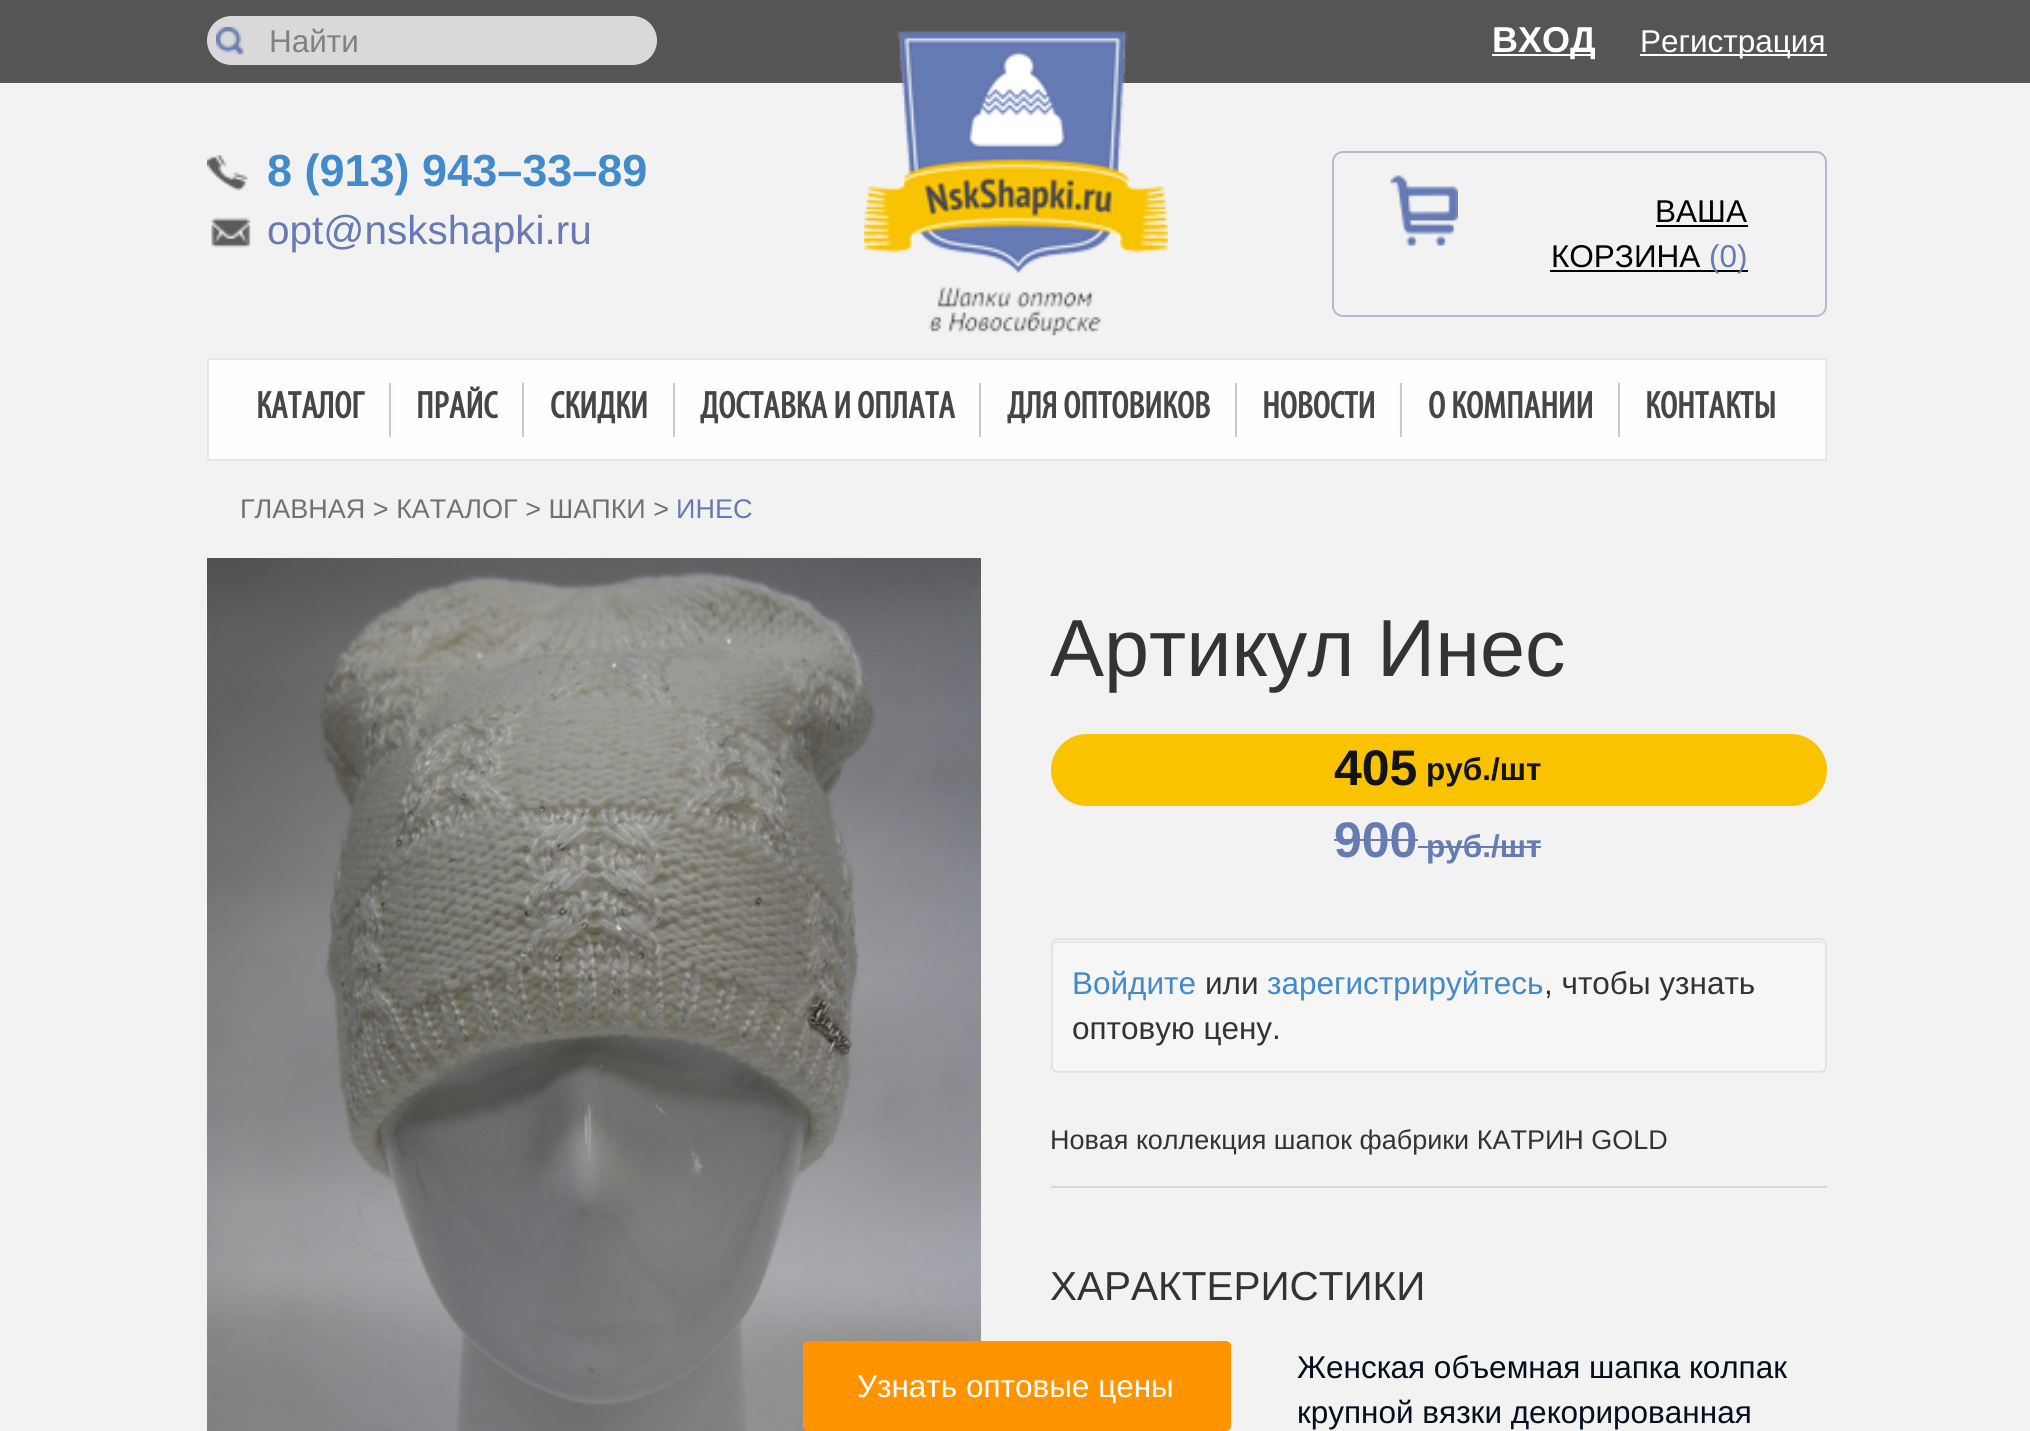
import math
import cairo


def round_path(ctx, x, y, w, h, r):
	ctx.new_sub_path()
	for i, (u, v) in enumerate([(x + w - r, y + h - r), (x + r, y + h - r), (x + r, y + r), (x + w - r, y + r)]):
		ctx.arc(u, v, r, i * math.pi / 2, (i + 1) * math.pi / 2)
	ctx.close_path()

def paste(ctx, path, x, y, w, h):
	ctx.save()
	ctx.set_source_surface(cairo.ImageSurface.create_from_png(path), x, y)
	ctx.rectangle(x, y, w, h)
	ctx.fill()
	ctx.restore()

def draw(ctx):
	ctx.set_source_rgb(0.949, 0.949, 0.949)
	ctx.paint()
	ctx.set_source_rgb(0.333, 0.333, 0.333)
	ctx.rectangle(0, 0, 2030, 83)
	ctx.fill()
	ctx.set_source_rgb(0.851, 0.851, 0.851)
	round_path(ctx, 207, 16, 450, 49, 24.5)
	ctx.fill()
	paste(ctx, 'media/1.png', 216, 27, 28, 28)
	ctx.select_font_face('Liberation Sans')
	ctx.set_font_size(31.5)
	ctx.set_source_rgb(0.506, 0.506, 0.506)
	ctx.move_to(269, 52)
	ctx.show_text('Найти')
	ctx.set_source_rgb(1, 1, 1)
	ctx.rectangle(1492, 54, 103, 2)
	ctx.fill()
	ctx.select_font_face('Liberation Sans', cairo.FONT_SLANT_NORMAL, cairo.FONT_WEIGHT_BOLD)
	ctx.set_font_size(36)
	ctx.move_to(1492, 52)
	ctx.show_text('ВХОД')
	ctx.rectangle(1640, 54, 187, 2)
	ctx.fill()
	ctx.select_font_face('Liberation Sans')
	ctx.set_font_size(31.5)
	ctx.move_to(1640, 52)
	ctx.show_text('Регистрация')
	paste(ctx, 'media/2.png', 207, 155, 41, 37)
	ctx.select_font_face('Liberation Sans', cairo.FONT_SLANT_NORMAL, cairo.FONT_WEIGHT_BOLD)
	ctx.set_font_size(45)
	ctx.set_source_rgb(0.259, 0.545, 0.792)
	ctx.move_to(267, 186)
	ctx.show_text('8 (913) 943–33–89')
	paste(ctx, 'media/3.png', 211, 217, 40, 31)
	ctx.select_font_face('Liberation Sans')
	ctx.set_font_size(40.5)
	ctx.set_source_rgb(0.4, 0.478, 0.702)
	ctx.move_to(267, 244)
	ctx.show_text('opt@nskshapki.ru')
	paste(ctx, 'media/4.png', 864, 31, 304, 305)
	paste(ctx, 'media/5.png', 1390, 175, 68, 72)
	round_path(ctx, 1333, 152, 493, 164, 10)
	ctx.set_source_rgb(0.686, 0.725, 0.831)
	ctx.stroke()
	ctx.set_font_size(31.5)
	ctx.set_source_rgb(0, 0, 0)
	ctx.move_to(1655, 222)
	ctx.show_text('ВАША')
	ctx.rectangle(1656, 225, 92, 2)
	ctx.fill()
	ctx.move_to(1551, 267)
	ctx.show_text('КОРЗИНА')
	ctx.rectangle(1550, 270, 198, 2)
	ctx.fill()
	ctx.set_source_rgb(0.4, 0.478, 0.702)
	ctx.move_to(1709, 267)
	ctx.show_text('(0)')
	ctx.set_source_rgb(0.996, 0.996, 0.996)
	ctx.rectangle(208, 359, 1618, 101)
	ctx.fill_preserve()
	ctx.set_source_rgb(0.902, 0.902, 0.922)
	ctx.stroke()
	ctx.set_source_rgb(0.812, 0.784, 0.737)
	ctx.rectangle(389, 383, 2, 54)
	ctx.fill()
	ctx.select_font_face('Myriad', cairo.FONT_SLANT_NORMAL, cairo.FONT_WEIGHT_BOLD)
	ctx.set_font_size(38.25)
	ctx.set_source_rgb(0.275, 0.275, 0.275)
	ctx.move_to(256, 418)
	ctx.show_text('КАТАЛОГ')
	ctx.set_source_rgb(0.812, 0.784, 0.737)
	ctx.rectangle(522, 383, 2, 54)
	ctx.fill()
	ctx.set_source_rgb(0.275, 0.275, 0.275)
	ctx.move_to(416, 418)
	ctx.show_text('ПРАЙС')
	ctx.set_source_rgb(0.812, 0.784, 0.737)
	ctx.rectangle(673, 383, 2, 54)
	ctx.fill()
	ctx.set_source_rgb(0.275, 0.275, 0.275)
	ctx.move_to(550, 418)
	ctx.show_text('СКИДКИ')
	ctx.set_source_rgb(0.812, 0.784, 0.737)
	ctx.rectangle(979, 383, 2, 54)
	ctx.fill()
	ctx.set_source_rgb(0.275, 0.275, 0.275)
	ctx.move_to(700, 418)
	ctx.show_text('ДОСТАВКА И ОПЛАТА')
	ctx.set_source_rgb(0.812, 0.784, 0.737)
	ctx.rectangle(1235, 383, 2, 54)
	ctx.fill()
	ctx.set_source_rgb(0.275, 0.275, 0.275)
	ctx.move_to(1007, 418)
	ctx.show_text('ДЛЯ ОПТОВИКОВ')
	ctx.set_source_rgb(0.812, 0.784, 0.737)
	ctx.rectangle(1400, 383, 2, 54)
	ctx.fill()
	ctx.set_source_rgb(0.275, 0.275, 0.275)
	ctx.move_to(1262, 418)
	ctx.show_text('НОВОСТИ')
	ctx.set_source_rgb(0.812, 0.784, 0.737)
	ctx.rectangle(1618, 383, 2, 54)
	ctx.fill()
	ctx.set_source_rgb(0.275, 0.275, 0.275)
	ctx.move_to(1428, 418)
	ctx.show_text('О КОМПАНИИ')
	ctx.move_to(1645, 418)
	ctx.show_text('КОНТАКТЫ')
	ctx.select_font_face('Liberation Sans')
	ctx.set_font_size(27)
	ctx.set_source_rgb(0.443, 0.443, 0.443)
	ctx.move_to(240, 518)
	ctx.show_text('ГЛАВНАЯ > КАТАЛОГ > ШАПКИ >')
	ctx.set_source_rgb(0.4, 0.478, 0.702)
	ctx.move_to(676, 518)
	ctx.show_text('ИНЕС')
	paste(ctx, 'media/6.png', 207, 558, 774, 873)
	ctx.set_font_size(81)
	ctx.set_source_rgb(0.2, 0.2, 0.2)
	ctx.move_to(1050, 676)
	ctx.show_text('Артикул Инес')
	ctx.set_source_rgb(0.973, 0.765, 0)
	round_path(ctx, 1051, 734, 776, 72, 36)
	ctx.fill()
	ctx.select_font_face('Liberation Sans', cairo.FONT_SLANT_NORMAL, cairo.FONT_WEIGHT_BOLD)
	ctx.set_font_size(50)
	ctx.set_source_rgb(0.078, 0.078, 0.078)
	ctx.move_to(1334, 785)
	ctx.show_text('405')
	ctx.set_font_size(31.5)
	ctx.move_to(1426, 780)
	ctx.show_text('руб./шт')
	ctx.set_font_size(50)
	ctx.set_source_rgb(0.4, 0.478, 0.702)
	ctx.move_to(1334, 857)
	ctx.show_text('900')
	ctx.rectangle(1334, 839, 84, 2)
	ctx.fill()
	ctx.set_font_size(31.5)
	ctx.move_to(1426, 857)
	ctx.show_text('руб./шт')
	ctx.rectangle(1418, 846, 123, 2)
	ctx.fill()
	ctx.set_source_rgb(0.961, 0.961, 0.961)
	round_path(ctx, 1051, 938, 776, 135, 7)
	ctx.fill()
	ctx.set_source_rgb(0.914, 0.914, 0.914)
	ctx.new_path()
	ctx.move_to(1058, 943)
	ctx.line_to(1820, 943)
	ctx.curve_to(1823, 943, 1825, 945, 1825, 947)
	ctx.line_to(1825, 946)
	ctx.curve_to(1825, 943, 1823, 941, 1820, 941)
	ctx.line_to(1058, 941)
	ctx.curve_to(1055, 941, 1053, 943, 1053, 946)
	ctx.line_to(1053, 947)
	ctx.curve_to(1053, 945, 1055, 943, 1058, 943)
	ctx.close_path()
	ctx.fill()
	round_path(ctx, 1052, 939, 774, 133, 6)
	ctx.set_source_rgb(0.89, 0.89, 0.89)
	ctx.stroke()
	ctx.select_font_face('Liberation Sans')
	ctx.set_source_rgb(0.259, 0.545, 0.792)
	ctx.move_to(1072, 994)
	ctx.show_text('Войдите')
	ctx.set_source_rgb(0.2, 0.2, 0.2)
	ctx.move_to(1205, 994)
	ctx.show_text('или')
	ctx.set_source_rgb(0.259, 0.545, 0.792)
	ctx.move_to(1267, 994)
	ctx.show_text('зарегистрируйтесь')
	ctx.set_source_rgb(0.2, 0.2, 0.2)
	ctx.move_to(1544, 994)
	ctx.show_text(', чтобы узнать')
	ctx.move_to(1072, 1039)
	ctx.show_text('оптовую цену.')
	ctx.set_font_size(27)
	ctx.move_to(1050, 1149)
	ctx.show_text('Новая коллекция шапок фабрики КАТРИН GOLD')
	ctx.set_source_rgb(0.843, 0.843, 0.843)
	ctx.rectangle(1051, 1186, 776, 2)
	ctx.fill()
	ctx.set_font_size(40.5)
	ctx.set_source_rgb(0.2, 0.2, 0.2)
	ctx.move_to(1050, 1300)
	ctx.show_text('ХАРАКТЕРИСТИКИ')
	ctx.set_font_size(31.5)
	ctx.set_source_rgb(0.02, 0.055, 0.106)
	ctx.move_to(1297, 1378)
	ctx.show_text('Женская объемная шапка колпак')
	ctx.move_to(1297, 1423)
	ctx.show_text('крупной вязки декорированная')
	ctx.set_source_rgb(1, 0.58, 0)
	round_path(ctx, 803, 1341, 428, 90, 5)
	ctx.fill()
	ctx.set_source_rgb(1, 1, 1)
	ctx.move_to(857, 1397)
	ctx.show_text('Узнать оптовые цены')


surface = cairo.ImageSurface(cairo.FORMAT_RGB24, 2030, 1431)
ctx = cairo.Context(surface)
options = cairo.FontOptions()
options.set_hint_metrics(cairo.HINT_METRICS_OFF)
options.set_hint_style(cairo.HINT_STYLE_NONE)
ctx.set_font_options(options)
ctx.set_miter_limit(4)
draw(ctx)
surface.write_to_png('image.png')
